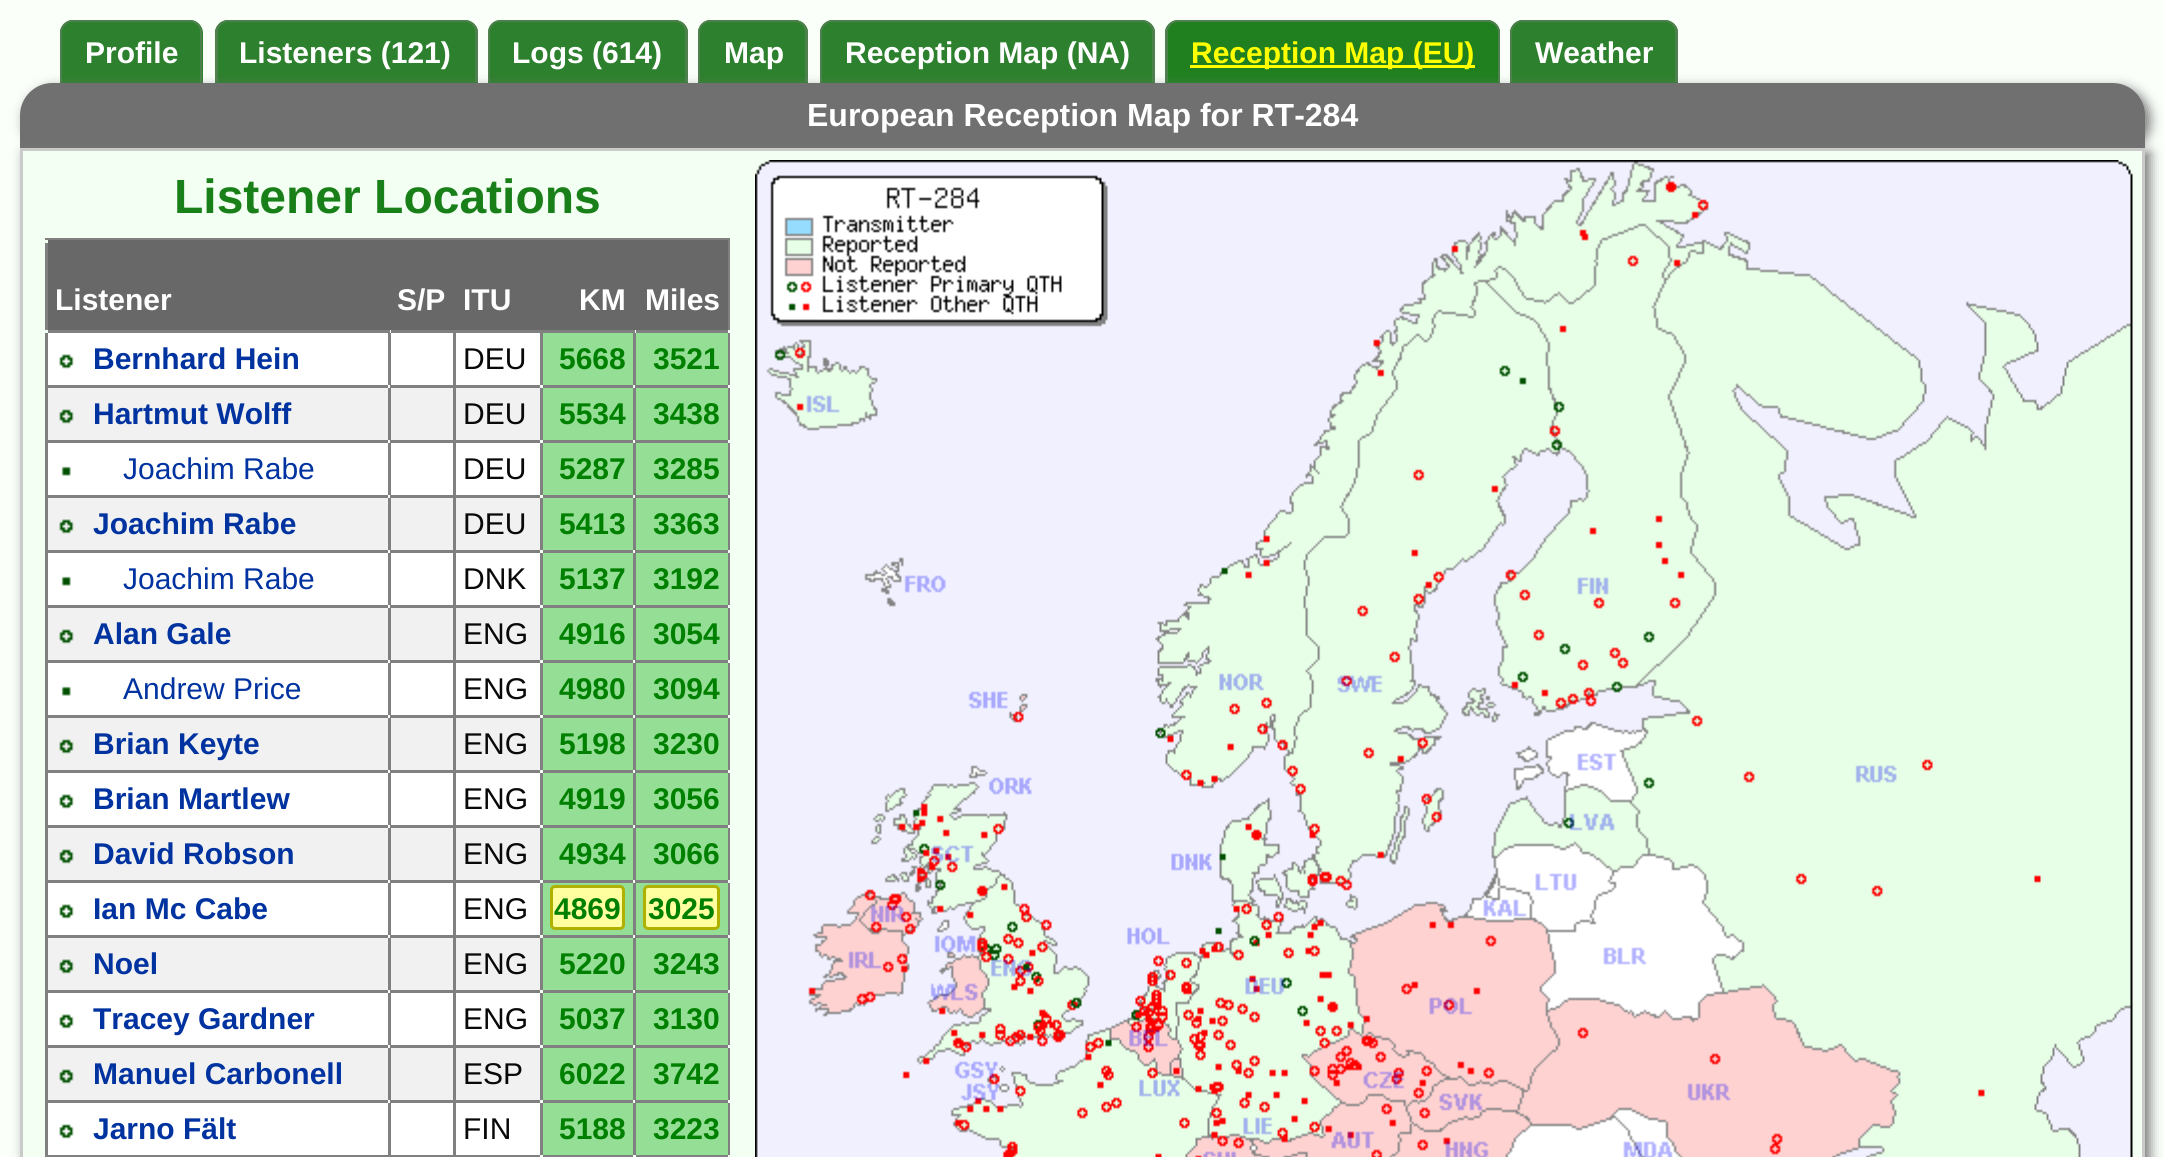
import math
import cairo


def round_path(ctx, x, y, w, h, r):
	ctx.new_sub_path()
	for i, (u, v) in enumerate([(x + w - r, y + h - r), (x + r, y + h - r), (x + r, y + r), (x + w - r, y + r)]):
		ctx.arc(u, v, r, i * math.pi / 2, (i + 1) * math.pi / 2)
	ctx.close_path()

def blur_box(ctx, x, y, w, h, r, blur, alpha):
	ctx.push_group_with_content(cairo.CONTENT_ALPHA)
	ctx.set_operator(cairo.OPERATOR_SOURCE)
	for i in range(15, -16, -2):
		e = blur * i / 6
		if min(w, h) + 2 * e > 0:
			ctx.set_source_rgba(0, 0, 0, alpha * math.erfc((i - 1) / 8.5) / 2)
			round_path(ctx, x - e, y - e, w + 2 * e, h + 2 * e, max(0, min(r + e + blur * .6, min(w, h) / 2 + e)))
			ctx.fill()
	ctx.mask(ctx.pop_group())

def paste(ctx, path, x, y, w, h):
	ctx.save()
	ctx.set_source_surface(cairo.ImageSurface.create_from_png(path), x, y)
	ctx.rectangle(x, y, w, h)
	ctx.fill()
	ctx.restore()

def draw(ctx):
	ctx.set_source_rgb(0.98, 1, 0.98)
	ctx.paint()
	ctx.set_source_rgb(0.176, 0.502, 0.176)
	ctx.new_path()
	ctx.move_to(73, 20)
	ctx.line_to(190, 20)
	ctx.curve_to(197, 20, 203, 26, 203, 33)
	ctx.line_to(203, 83)
	ctx.line_to(60, 83)
	ctx.line_to(60, 33)
	ctx.curve_to(60, 26, 66, 20, 73, 20)
	ctx.close_path()
	ctx.fill()
	ctx.set_source_rgb(0.302, 0.502, 0.302)
	ctx.set_fill_rule(cairo.FILL_RULE_EVEN_ODD)
	ctx.new_path()
	ctx.move_to(72, 20)
	ctx.line_to(190, 20)
	ctx.curve_to(197, 20, 202, 26, 202, 32)
	ctx.line_to(202, 82)
	ctx.line_to(60, 82)
	ctx.line_to(60, 32)
	ctx.curve_to(60, 26, 66, 20, 72, 20)
	ctx.close_path()
	ctx.move_to(72, 22)
	ctx.line_to(190, 22)
	ctx.curve_to(196, 22, 200, 27, 200, 32)
	ctx.line_to(200, 82)
	ctx.line_to(62, 82)
	ctx.line_to(62, 32)
	ctx.curve_to(62, 27, 67, 22, 72, 22)
	ctx.close_path()
	ctx.fill()
	ctx.select_font_face('Liberation Sans', cairo.FONT_SLANT_NORMAL, cairo.FONT_WEIGHT_BOLD)
	ctx.set_font_size(30)
	ctx.set_source_rgb(1, 1, 1)
	ctx.move_to(85, 63)
	ctx.show_text('Profile')
	ctx.set_source_rgb(0.176, 0.502, 0.176)
	ctx.new_path()
	ctx.move_to(228, 20)
	ctx.line_to(465, 20)
	ctx.curve_to(472, 20, 478, 26, 478, 33)
	ctx.line_to(478, 83)
	ctx.line_to(215, 83)
	ctx.line_to(215, 33)
	ctx.curve_to(215, 26, 221, 20, 228, 20)
	ctx.close_path()
	ctx.fill()
	ctx.set_source_rgb(0.302, 0.502, 0.302)
	ctx.new_path()
	ctx.move_to(228, 20)
	ctx.line_to(465, 20)
	ctx.curve_to(472, 20, 478, 26, 478, 32)
	ctx.line_to(478, 82)
	ctx.line_to(215, 82)
	ctx.line_to(215, 32)
	ctx.curve_to(215, 26, 221, 20, 228, 20)
	ctx.close_path()
	ctx.move_to(228, 22)
	ctx.line_to(465, 22)
	ctx.curve_to(471, 22, 475, 27, 475, 32)
	ctx.line_to(475, 82)
	ctx.line_to(218, 82)
	ctx.line_to(218, 32)
	ctx.curve_to(218, 27, 222, 22, 228, 22)
	ctx.close_path()
	ctx.fill()
	ctx.set_source_rgb(1, 1, 1)
	ctx.move_to(239, 63)
	ctx.show_text('Listeners (121)')
	ctx.set_source_rgb(0.176, 0.502, 0.176)
	ctx.new_path()
	ctx.move_to(501, 20)
	ctx.line_to(675, 20)
	ctx.curve_to(682, 20, 688, 26, 688, 33)
	ctx.line_to(688, 83)
	ctx.line_to(488, 83)
	ctx.line_to(488, 33)
	ctx.curve_to(488, 26, 494, 20, 501, 20)
	ctx.close_path()
	ctx.fill()
	ctx.set_source_rgb(0.302, 0.502, 0.302)
	ctx.new_path()
	ctx.move_to(500, 20)
	ctx.line_to(675, 20)
	ctx.curve_to(682, 20, 688, 26, 688, 32)
	ctx.line_to(688, 82)
	ctx.line_to(488, 82)
	ctx.line_to(488, 32)
	ctx.curve_to(488, 26, 493, 20, 500, 20)
	ctx.close_path()
	ctx.move_to(500, 22)
	ctx.line_to(675, 22)
	ctx.curve_to(681, 22, 685, 27, 685, 32)
	ctx.line_to(685, 82)
	ctx.line_to(490, 82)
	ctx.line_to(490, 32)
	ctx.curve_to(490, 27, 494, 22, 500, 22)
	ctx.close_path()
	ctx.fill()
	ctx.set_source_rgb(1, 1, 1)
	ctx.move_to(512, 63)
	ctx.show_text('Logs (614)')
	ctx.set_source_rgb(0.176, 0.502, 0.176)
	ctx.new_path()
	ctx.move_to(711, 20)
	ctx.line_to(795, 20)
	ctx.curve_to(802, 20, 808, 26, 808, 33)
	ctx.line_to(808, 83)
	ctx.line_to(698, 83)
	ctx.line_to(698, 33)
	ctx.curve_to(698, 26, 704, 20, 711, 20)
	ctx.close_path()
	ctx.fill()
	ctx.set_source_rgb(0.302, 0.502, 0.302)
	ctx.new_path()
	ctx.move_to(710, 20)
	ctx.line_to(795, 20)
	ctx.curve_to(802, 20, 808, 26, 808, 32)
	ctx.line_to(808, 82)
	ctx.line_to(698, 82)
	ctx.line_to(698, 32)
	ctx.curve_to(698, 26, 703, 20, 710, 20)
	ctx.close_path()
	ctx.move_to(710, 22)
	ctx.line_to(795, 22)
	ctx.curve_to(801, 22, 805, 27, 805, 32)
	ctx.line_to(805, 82)
	ctx.line_to(700, 82)
	ctx.line_to(700, 32)
	ctx.curve_to(700, 27, 704, 22, 710, 22)
	ctx.close_path()
	ctx.fill()
	ctx.set_source_rgb(1, 1, 1)
	ctx.move_to(724, 63)
	ctx.show_text('Map')
	ctx.set_source_rgb(0.176, 0.502, 0.176)
	ctx.new_path()
	ctx.move_to(833, 20)
	ctx.line_to(1142, 20)
	ctx.curve_to(1149, 20, 1155, 26, 1155, 33)
	ctx.line_to(1155, 83)
	ctx.line_to(820, 83)
	ctx.line_to(820, 33)
	ctx.curve_to(820, 26, 826, 20, 833, 20)
	ctx.close_path()
	ctx.fill()
	ctx.set_source_rgb(0.302, 0.502, 0.302)
	ctx.new_path()
	ctx.move_to(832, 20)
	ctx.line_to(1142, 20)
	ctx.curve_to(1149, 20, 1155, 26, 1155, 32)
	ctx.line_to(1155, 82)
	ctx.line_to(820, 82)
	ctx.line_to(820, 32)
	ctx.curve_to(820, 26, 826, 20, 832, 20)
	ctx.close_path()
	ctx.move_to(832, 22)
	ctx.line_to(1142, 22)
	ctx.curve_to(1148, 22, 1152, 27, 1152, 32)
	ctx.line_to(1152, 82)
	ctx.line_to(822, 82)
	ctx.line_to(822, 32)
	ctx.curve_to(822, 27, 827, 22, 832, 22)
	ctx.close_path()
	ctx.fill()
	ctx.set_source_rgb(1, 1, 1)
	ctx.move_to(845, 63)
	ctx.show_text('Reception Map (NA)')
	ctx.set_source_rgb(0.125, 0.502, 0.125)
	ctx.new_path()
	ctx.move_to(1178, 20)
	ctx.line_to(1487, 20)
	ctx.curve_to(1494, 20, 1500, 26, 1500, 33)
	ctx.line_to(1500, 83)
	ctx.line_to(1165, 83)
	ctx.line_to(1165, 33)
	ctx.curve_to(1165, 26, 1171, 20, 1178, 20)
	ctx.close_path()
	ctx.fill()
	ctx.set_source_rgb(0.302, 0.502, 0.302)
	ctx.new_path()
	ctx.move_to(1178, 20)
	ctx.line_to(1488, 20)
	ctx.curve_to(1494, 20, 1500, 26, 1500, 32)
	ctx.line_to(1500, 82)
	ctx.line_to(1165, 82)
	ctx.line_to(1165, 32)
	ctx.curve_to(1165, 26, 1171, 20, 1178, 20)
	ctx.close_path()
	ctx.move_to(1178, 22)
	ctx.line_to(1488, 22)
	ctx.curve_to(1493, 22, 1498, 27, 1498, 32)
	ctx.line_to(1498, 82)
	ctx.line_to(1168, 82)
	ctx.line_to(1168, 32)
	ctx.curve_to(1168, 27, 1172, 22, 1178, 22)
	ctx.close_path()
	ctx.fill()
	ctx.set_source_rgb(1, 1, 0)
	ctx.rectangle(1190, 65, 285, 3)
	ctx.fill()
	ctx.move_to(1191, 63)
	ctx.show_text('Reception Map (EU)')
	ctx.set_source_rgb(0.176, 0.502, 0.176)
	ctx.new_path()
	ctx.move_to(1523, 20)
	ctx.line_to(1665, 20)
	ctx.curve_to(1672, 20, 1678, 26, 1678, 33)
	ctx.line_to(1678, 83)
	ctx.line_to(1510, 83)
	ctx.line_to(1510, 33)
	ctx.curve_to(1510, 26, 1516, 20, 1523, 20)
	ctx.close_path()
	ctx.fill()
	ctx.set_source_rgb(0.302, 0.502, 0.302)
	ctx.new_path()
	ctx.move_to(1522, 20)
	ctx.line_to(1665, 20)
	ctx.curve_to(1672, 20, 1678, 26, 1678, 32)
	ctx.line_to(1678, 82)
	ctx.line_to(1510, 82)
	ctx.line_to(1510, 32)
	ctx.curve_to(1510, 26, 1516, 20, 1522, 20)
	ctx.close_path()
	ctx.move_to(1522, 22)
	ctx.line_to(1665, 22)
	ctx.curve_to(1671, 22, 1675, 27, 1675, 32)
	ctx.line_to(1675, 82)
	ctx.line_to(1512, 82)
	ctx.line_to(1512, 32)
	ctx.curve_to(1512, 27, 1517, 22, 1522, 22)
	ctx.close_path()
	ctx.fill()
	ctx.set_source_rgb(1, 1, 1)
	ctx.move_to(1535, 63)
	ctx.show_text('Weather')
	ctx.set_source_rgb(0.467, 0.467, 0.467)
	blur_box(ctx, 25, 88, 2125, 65, 32.5, 6, 1)
	ctx.set_source_rgb(0.439, 0.439, 0.439)
	ctx.new_path()
	ctx.move_to(52.5, 83)
	ctx.line_to(2112.5, 83)
	ctx.curve_to(2130.5, 83, 2145, 97.5, 2145, 115.5)
	ctx.line_to(2145, 148)
	ctx.line_to(20, 148)
	ctx.line_to(20, 115.5)
	ctx.curve_to(20, 97.5, 34.5, 83, 52.5, 83)
	ctx.close_path()
	ctx.fill()
	ctx.set_font_size(32)
	ctx.set_source_rgb(1, 1, 1)
	ctx.move_to(807, 126)
	ctx.show_text('European Reception Map for RT-284')
	ctx.set_source_rgb(0.467, 0.467, 0.467)
	blur_box(ctx, 25, 153, 2125, 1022, 0, 6, 1)
	ctx.set_source_rgb(0.949, 1, 0.949)
	ctx.rectangle(21.5, 149.5, 2122, 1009)
	ctx.fill_preserve()
	ctx.set_source_rgb(0.792, 0.792, 0.792)
	ctx.set_line_width(3)
	ctx.stroke()
	ctx.set_font_size(48)
	ctx.set_source_rgb(0.098, 0.502, 0.098)
	ctx.move_to(174, 213)
	ctx.show_text('Listener Locations')
	ctx.set_source_rgb(1, 1, 1)
	ctx.rectangle(48, 333, 492, 822)
	ctx.fill()
	ctx.set_source_rgb(0.502, 0.502, 0.502)
	ctx.rectangle(728, 238, 2, 919)
	ctx.rectangle(633, 330, 97, 3)
	ctx.rectangle(633, 385, 97, 3)
	ctx.rectangle(633, 440, 97, 3)
	ctx.rectangle(633, 495, 97, 3)
	ctx.rectangle(633, 550, 97, 3)
	ctx.rectangle(633, 605, 97, 3)
	ctx.rectangle(633, 660, 97, 3)
	ctx.rectangle(633, 715, 97, 3)
	ctx.rectangle(633, 770, 97, 3)
	ctx.rectangle(633, 825, 97, 3)
	ctx.rectangle(633, 880, 97, 3)
	ctx.rectangle(633, 935, 97, 3)
	ctx.rectangle(633, 990, 97, 3)
	ctx.rectangle(633, 1045, 97, 3)
	ctx.rectangle(633, 1100, 97, 3)
	ctx.rectangle(45, 1155, 685, 2)
	ctx.rectangle(633, 1100, 3, 57)
	ctx.rectangle(540, 1100, 95, 3)
	ctx.rectangle(633, 1045, 3, 58)
	ctx.rectangle(540, 1045, 95, 3)
	ctx.rectangle(633, 990, 3, 58)
	ctx.rectangle(540, 990, 95, 3)
	ctx.rectangle(633, 935, 3, 58)
	ctx.rectangle(540, 935, 95, 3)
	ctx.rectangle(633, 880, 3, 58)
	ctx.rectangle(540, 880, 95, 3)
	ctx.rectangle(633, 825, 3, 58)
	ctx.rectangle(540, 825, 95, 3)
	ctx.rectangle(633, 770, 3, 58)
	ctx.rectangle(540, 770, 95, 3)
	ctx.rectangle(633, 715, 3, 58)
	ctx.rectangle(540, 715, 95, 3)
	ctx.rectangle(633, 660, 3, 58)
	ctx.rectangle(540, 660, 95, 3)
	ctx.rectangle(633, 605, 3, 58)
	ctx.rectangle(540, 605, 95, 3)
	ctx.rectangle(633, 550, 3, 58)
	ctx.rectangle(540, 550, 95, 3)
	ctx.rectangle(633, 495, 3, 58)
	ctx.rectangle(540, 495, 95, 3)
	ctx.rectangle(633, 440, 3, 58)
	ctx.rectangle(540, 440, 95, 3)
	ctx.rectangle(633, 385, 3, 58)
	ctx.rectangle(540, 385, 95, 3)
	ctx.rectangle(633, 330, 3, 58)
	ctx.rectangle(540, 330, 95, 3)
	ctx.rectangle(540, 1100, 3, 57)
	ctx.rectangle(453, 1100, 90, 3)
	ctx.rectangle(540, 1045, 3, 58)
	ctx.rectangle(453, 1045, 90, 3)
	ctx.rectangle(540, 990, 3, 58)
	ctx.rectangle(453, 990, 90, 3)
	ctx.rectangle(540, 935, 3, 58)
	ctx.rectangle(453, 935, 90, 3)
	ctx.rectangle(540, 880, 3, 58)
	ctx.rectangle(453, 880, 90, 3)
	ctx.rectangle(540, 825, 3, 58)
	ctx.rectangle(453, 825, 90, 3)
	ctx.rectangle(540, 770, 3, 58)
	ctx.rectangle(453, 770, 90, 3)
	ctx.rectangle(540, 715, 3, 58)
	ctx.rectangle(453, 715, 90, 3)
	ctx.rectangle(540, 660, 3, 58)
	ctx.rectangle(453, 660, 90, 3)
	ctx.rectangle(540, 605, 3, 58)
	ctx.rectangle(453, 605, 90, 3)
	ctx.rectangle(540, 550, 3, 58)
	ctx.rectangle(453, 550, 90, 3)
	ctx.rectangle(540, 495, 3, 58)
	ctx.rectangle(453, 495, 90, 3)
	ctx.rectangle(540, 440, 3, 58)
	ctx.rectangle(453, 440, 90, 3)
	ctx.rectangle(540, 385, 3, 58)
	ctx.rectangle(453, 385, 90, 3)
	ctx.rectangle(540, 330, 3, 58)
	ctx.rectangle(453, 330, 90, 3)
	ctx.fill()
	ctx.set_source_rgb(0.945, 0.945, 0.945)
	ctx.rectangle(48, 388, 492, 52)
	ctx.rectangle(48, 498, 492, 52)
	ctx.rectangle(48, 608, 492, 52)
	ctx.rectangle(48, 718, 492, 52)
	ctx.rectangle(48, 828, 492, 52)
	ctx.rectangle(48, 938, 492, 52)
	ctx.rectangle(48, 1048, 492, 52)
	ctx.fill()
	ctx.set_source_rgb(0.502, 0.502, 0.502)
	ctx.rectangle(453, 1100, 3, 57)
	ctx.rectangle(388, 1100, 67, 3)
	ctx.rectangle(453, 1045, 3, 58)
	ctx.rectangle(388, 1045, 67, 3)
	ctx.rectangle(453, 990, 3, 58)
	ctx.rectangle(388, 990, 67, 3)
	ctx.rectangle(453, 935, 3, 58)
	ctx.rectangle(388, 935, 67, 3)
	ctx.rectangle(453, 880, 3, 58)
	ctx.rectangle(388, 880, 67, 3)
	ctx.rectangle(453, 825, 3, 58)
	ctx.rectangle(388, 825, 67, 3)
	ctx.rectangle(453, 770, 3, 58)
	ctx.rectangle(388, 770, 67, 3)
	ctx.rectangle(453, 715, 3, 58)
	ctx.rectangle(388, 715, 67, 3)
	ctx.rectangle(453, 660, 3, 58)
	ctx.rectangle(388, 660, 67, 3)
	ctx.rectangle(453, 605, 3, 58)
	ctx.rectangle(388, 605, 67, 3)
	ctx.rectangle(453, 550, 3, 58)
	ctx.rectangle(388, 550, 67, 3)
	ctx.rectangle(453, 495, 3, 58)
	ctx.rectangle(388, 495, 67, 3)
	ctx.rectangle(453, 440, 3, 58)
	ctx.rectangle(388, 440, 67, 3)
	ctx.rectangle(453, 385, 3, 58)
	ctx.rectangle(388, 385, 67, 3)
	ctx.rectangle(453, 330, 3, 58)
	ctx.rectangle(388, 330, 67, 3)
	ctx.rectangle(388, 1100, 3, 57)
	ctx.rectangle(45, 1100, 345, 3)
	ctx.rectangle(388, 1045, 3, 58)
	ctx.rectangle(45, 1045, 345, 3)
	ctx.rectangle(388, 990, 3, 58)
	ctx.rectangle(45, 990, 345, 3)
	ctx.rectangle(388, 935, 3, 58)
	ctx.rectangle(45, 935, 345, 3)
	ctx.rectangle(388, 880, 3, 58)
	ctx.rectangle(45, 880, 345, 3)
	ctx.rectangle(388, 825, 3, 58)
	ctx.rectangle(45, 825, 345, 3)
	ctx.rectangle(388, 770, 3, 58)
	ctx.rectangle(45, 770, 345, 3)
	ctx.rectangle(388, 715, 3, 58)
	ctx.rectangle(45, 715, 345, 3)
	ctx.rectangle(388, 660, 3, 58)
	ctx.rectangle(45, 660, 345, 3)
	ctx.rectangle(388, 605, 3, 58)
	ctx.rectangle(45, 605, 345, 3)
	ctx.rectangle(388, 550, 3, 58)
	ctx.rectangle(45, 550, 345, 3)
	ctx.rectangle(388, 495, 3, 58)
	ctx.rectangle(45, 495, 345, 3)
	ctx.rectangle(388, 440, 3, 58)
	ctx.rectangle(45, 440, 345, 3)
	ctx.rectangle(388, 385, 3, 58)
	ctx.rectangle(45, 385, 345, 3)
	ctx.rectangle(388, 330, 3, 58)
	ctx.rectangle(45, 330, 345, 3)
	ctx.rectangle(45, 1100, 3, 57)
	ctx.rectangle(45, 1045, 3, 58)
	ctx.rectangle(45, 990, 3, 58)
	ctx.rectangle(45, 935, 3, 58)
	ctx.rectangle(45, 880, 3, 58)
	ctx.rectangle(45, 825, 3, 58)
	ctx.rectangle(45, 770, 3, 58)
	ctx.rectangle(45, 715, 3, 58)
	ctx.rectangle(45, 660, 3, 58)
	ctx.rectangle(45, 605, 3, 58)
	ctx.rectangle(45, 550, 3, 58)
	ctx.rectangle(45, 495, 3, 58)
	ctx.rectangle(45, 440, 3, 58)
	ctx.rectangle(45, 385, 3, 58)
	ctx.rectangle(45, 240, 3, 148)
	ctx.rectangle(45, 238, 685, 5)
	ctx.fill()
	ctx.set_source_rgb(0.408, 0.408, 0.408)
	ctx.rectangle(48, 240, 680, 90)
	ctx.fill()
	ctx.set_font_size(30)
	ctx.set_source_rgb(1, 1, 1)
	for x, y, s in [
		(55, 310, 'Listener'),
		(397, 310, 'S/P'),
		(463, 310, 'ITU'),
		(579, 310, 'KM'),
		(645, 310, 'Miles'),
	]:
		ctx.move_to(x, y)
		ctx.show_text(s)
	paste(ctx, 'media/1.png', 59, 354, 15, 15)
	ctx.set_source_rgb(0, 0.2, 0.627)
	ctx.move_to(93, 369)
	ctx.show_text('Bernhard Hein')
	ctx.select_font_face('Liberation Sans')
	ctx.set_source_rgb(0.039, 0.039, 0.039)
	ctx.move_to(463, 369)
	ctx.show_text('DEU')
	ctx.set_source_rgb(0.584, 0.871, 0.584)
	ctx.rectangle(543, 333, 90, 52)
	ctx.fill()
	ctx.select_font_face('Liberation Sans', cairo.FONT_SLANT_NORMAL, cairo.FONT_WEIGHT_BOLD)
	ctx.set_source_rgb(0, 0.502, 0)
	ctx.move_to(559, 369)
	ctx.show_text('5668')
	ctx.set_source_rgb(0.584, 0.871, 0.584)
	ctx.rectangle(636, 333, 92, 52)
	ctx.fill()
	ctx.set_source_rgb(0, 0.502, 0)
	ctx.move_to(653, 369)
	ctx.show_text('3521')
	paste(ctx, 'media/2.png', 59, 409, 15, 15)
	ctx.set_source_rgb(0, 0.2, 0.627)
	ctx.move_to(93, 424)
	ctx.show_text('Hartmut Wolff')
	ctx.select_font_face('Liberation Sans')
	ctx.set_source_rgb(0.039, 0.039, 0.039)
	ctx.move_to(463, 424)
	ctx.show_text('DEU')
	ctx.set_source_rgb(0.584, 0.871, 0.584)
	ctx.rectangle(543, 388, 90, 52)
	ctx.fill()
	ctx.select_font_face('Liberation Sans', cairo.FONT_SLANT_NORMAL, cairo.FONT_WEIGHT_BOLD)
	ctx.set_source_rgb(0, 0.502, 0)
	ctx.move_to(559, 424)
	ctx.show_text('5534')
	ctx.set_source_rgb(0.584, 0.871, 0.584)
	ctx.rectangle(636, 388, 92, 52)
	ctx.fill()
	ctx.set_source_rgb(0, 0.502, 0)
	ctx.move_to(653, 424)
	ctx.show_text('3438')
	paste(ctx, 'media/3.png', 61, 466, 10, 10)
	ctx.select_font_face('Liberation Sans')
	ctx.set_source_rgb(0, 0.2, 0.627)
	ctx.move_to(123, 479)
	ctx.show_text('Joachim Rabe')
	ctx.set_source_rgb(0.039, 0.039, 0.039)
	ctx.move_to(463, 479)
	ctx.show_text('DEU')
	ctx.set_source_rgb(0.584, 0.871, 0.584)
	ctx.rectangle(543, 443, 90, 52)
	ctx.fill()
	ctx.select_font_face('Liberation Sans', cairo.FONT_SLANT_NORMAL, cairo.FONT_WEIGHT_BOLD)
	ctx.set_source_rgb(0, 0.502, 0)
	ctx.move_to(559, 479)
	ctx.show_text('5287')
	ctx.set_source_rgb(0.584, 0.871, 0.584)
	ctx.rectangle(636, 443, 92, 52)
	ctx.fill()
	ctx.set_source_rgb(0, 0.502, 0)
	ctx.move_to(653, 479)
	ctx.show_text('3285')
	paste(ctx, 'media/2.png', 59, 519, 15, 15)
	ctx.set_source_rgb(0, 0.2, 0.627)
	ctx.move_to(93, 534)
	ctx.show_text('Joachim Rabe')
	ctx.select_font_face('Liberation Sans')
	ctx.set_source_rgb(0.039, 0.039, 0.039)
	ctx.move_to(463, 534)
	ctx.show_text('DEU')
	ctx.set_source_rgb(0.584, 0.871, 0.584)
	ctx.rectangle(543, 498, 90, 52)
	ctx.fill()
	ctx.select_font_face('Liberation Sans', cairo.FONT_SLANT_NORMAL, cairo.FONT_WEIGHT_BOLD)
	ctx.set_source_rgb(0, 0.502, 0)
	ctx.move_to(559, 534)
	ctx.show_text('5413')
	ctx.set_source_rgb(0.584, 0.871, 0.584)
	ctx.rectangle(636, 498, 92, 52)
	ctx.fill()
	ctx.set_source_rgb(0, 0.502, 0)
	ctx.move_to(653, 534)
	ctx.show_text('3363')
	paste(ctx, 'media/3.png', 61, 576, 10, 10)
	ctx.select_font_face('Liberation Sans')
	ctx.set_source_rgb(0, 0.2, 0.627)
	ctx.move_to(123, 589)
	ctx.show_text('Joachim Rabe')
	ctx.set_source_rgb(0.039, 0.039, 0.039)
	ctx.move_to(463, 589)
	ctx.show_text('DNK')
	ctx.set_source_rgb(0.584, 0.871, 0.584)
	ctx.rectangle(543, 553, 90, 52)
	ctx.fill()
	ctx.select_font_face('Liberation Sans', cairo.FONT_SLANT_NORMAL, cairo.FONT_WEIGHT_BOLD)
	ctx.set_source_rgb(0, 0.502, 0)
	ctx.move_to(559, 589)
	ctx.show_text('5137')
	ctx.set_source_rgb(0.584, 0.871, 0.584)
	ctx.rectangle(636, 553, 92, 52)
	ctx.fill()
	ctx.set_source_rgb(0, 0.502, 0)
	ctx.move_to(653, 589)
	ctx.show_text('3192')
	paste(ctx, 'media/2.png', 59, 629, 15, 15)
	ctx.set_source_rgb(0, 0.2, 0.627)
	ctx.move_to(93, 644)
	ctx.show_text('Alan Gale')
	ctx.select_font_face('Liberation Sans')
	ctx.set_source_rgb(0.039, 0.039, 0.039)
	ctx.move_to(463, 644)
	ctx.show_text('ENG')
	ctx.set_source_rgb(0.584, 0.871, 0.584)
	ctx.rectangle(543, 608, 90, 52)
	ctx.fill()
	ctx.select_font_face('Liberation Sans', cairo.FONT_SLANT_NORMAL, cairo.FONT_WEIGHT_BOLD)
	ctx.set_source_rgb(0, 0.502, 0)
	ctx.move_to(559, 644)
	ctx.show_text('4916')
	ctx.set_source_rgb(0.584, 0.871, 0.584)
	ctx.rectangle(636, 608, 92, 52)
	ctx.fill()
	ctx.set_source_rgb(0, 0.502, 0)
	ctx.move_to(653, 644)
	ctx.show_text('3054')
	paste(ctx, 'media/3.png', 61, 686, 10, 10)
	ctx.select_font_face('Liberation Sans')
	ctx.set_source_rgb(0, 0.2, 0.627)
	ctx.move_to(123, 699)
	ctx.show_text('Andrew Price')
	ctx.set_source_rgb(0.039, 0.039, 0.039)
	ctx.move_to(463, 699)
	ctx.show_text('ENG')
	ctx.set_source_rgb(0.584, 0.871, 0.584)
	ctx.rectangle(543, 663, 90, 52)
	ctx.fill()
	ctx.select_font_face('Liberation Sans', cairo.FONT_SLANT_NORMAL, cairo.FONT_WEIGHT_BOLD)
	ctx.set_source_rgb(0, 0.502, 0)
	ctx.move_to(559, 699)
	ctx.show_text('4980')
	ctx.set_source_rgb(0.584, 0.871, 0.584)
	ctx.rectangle(636, 663, 92, 52)
	ctx.fill()
	ctx.set_source_rgb(0, 0.502, 0)
	ctx.move_to(653, 699)
	ctx.show_text('3094')
	paste(ctx, 'media/2.png', 59, 739, 15, 15)
	ctx.set_source_rgb(0, 0.2, 0.627)
	ctx.move_to(93, 754)
	ctx.show_text('Brian Keyte')
	ctx.select_font_face('Liberation Sans')
	ctx.set_source_rgb(0.039, 0.039, 0.039)
	ctx.move_to(463, 754)
	ctx.show_text('ENG')
	ctx.set_source_rgb(0.584, 0.871, 0.584)
	ctx.rectangle(543, 718, 90, 52)
	ctx.fill()
	ctx.select_font_face('Liberation Sans', cairo.FONT_SLANT_NORMAL, cairo.FONT_WEIGHT_BOLD)
	ctx.set_source_rgb(0, 0.502, 0)
	ctx.move_to(559, 754)
	ctx.show_text('5198')
	ctx.set_source_rgb(0.584, 0.871, 0.584)
	ctx.rectangle(636, 718, 92, 52)
	ctx.fill()
	ctx.set_source_rgb(0, 0.502, 0)
	ctx.move_to(653, 754)
	ctx.show_text('3230')
	paste(ctx, 'media/1.png', 59, 794, 15, 15)
	ctx.set_source_rgb(0, 0.2, 0.627)
	ctx.move_to(93, 809)
	ctx.show_text('Brian Martlew')
	ctx.select_font_face('Liberation Sans')
	ctx.set_source_rgb(0.039, 0.039, 0.039)
	ctx.move_to(463, 809)
	ctx.show_text('ENG')
	ctx.set_source_rgb(0.584, 0.871, 0.584)
	ctx.rectangle(543, 773, 90, 52)
	ctx.fill()
	ctx.select_font_face('Liberation Sans', cairo.FONT_SLANT_NORMAL, cairo.FONT_WEIGHT_BOLD)
	ctx.set_source_rgb(0, 0.502, 0)
	ctx.move_to(559, 809)
	ctx.show_text('4919')
	ctx.set_source_rgb(0.584, 0.871, 0.584)
	ctx.rectangle(636, 773, 92, 52)
	ctx.fill()
	ctx.set_source_rgb(0, 0.502, 0)
	ctx.move_to(653, 809)
	ctx.show_text('3056')
	paste(ctx, 'media/2.png', 59, 849, 15, 15)
	ctx.set_source_rgb(0, 0.2, 0.627)
	ctx.move_to(93, 864)
	ctx.show_text('David Robson')
	ctx.select_font_face('Liberation Sans')
	ctx.set_source_rgb(0.039, 0.039, 0.039)
	ctx.move_to(463, 864)
	ctx.show_text('ENG')
	ctx.set_source_rgb(0.584, 0.871, 0.584)
	ctx.rectangle(543, 828, 90, 52)
	ctx.fill()
	ctx.select_font_face('Liberation Sans', cairo.FONT_SLANT_NORMAL, cairo.FONT_WEIGHT_BOLD)
	ctx.set_source_rgb(0, 0.502, 0)
	ctx.move_to(559, 864)
	ctx.show_text('4934')
	ctx.set_source_rgb(0.584, 0.871, 0.584)
	ctx.rectangle(636, 828, 92, 52)
	ctx.fill()
	ctx.set_source_rgb(0, 0.502, 0)
	ctx.move_to(653, 864)
	ctx.show_text('3066')
	paste(ctx, 'media/1.png', 59, 904, 15, 15)
	ctx.set_source_rgb(0, 0.2, 0.627)
	ctx.move_to(93, 919)
	ctx.show_text('Ian Mc Cabe')
	ctx.select_font_face('Liberation Sans')
	ctx.set_source_rgb(0.039, 0.039, 0.039)
	ctx.move_to(463, 919)
	ctx.show_text('ENG')
	ctx.set_source_rgb(0.584, 0.871, 0.584)
	ctx.rectangle(543, 883, 90, 52)
	ctx.fill()
	ctx.set_source_rgb(1, 1, 0.627)
	round_path(ctx, 551.5, 886.5, 72, 42, 3.5)
	ctx.fill_preserve()
	ctx.set_source_rgb(0.69, 0.69, 0)
	ctx.stroke()
	ctx.select_font_face('Liberation Sans', cairo.FONT_SLANT_NORMAL, cairo.FONT_WEIGHT_BOLD)
	ctx.set_source_rgb(0, 0.502, 0)
	ctx.move_to(554, 919)
	ctx.show_text('4869')
	ctx.set_source_rgb(0.584, 0.871, 0.584)
	ctx.rectangle(636, 883, 92, 52)
	ctx.fill()
	ctx.set_source_rgb(1, 1, 0.627)
	round_path(ctx, 644.5, 886.5, 74, 42, 3.5)
	ctx.fill_preserve()
	ctx.set_source_rgb(0.69, 0.69, 0)
	ctx.stroke()
	ctx.set_source_rgb(0, 0.502, 0)
	ctx.move_to(648, 919)
	ctx.show_text('3025')
	paste(ctx, 'media/2.png', 59, 959, 15, 15)
	ctx.set_source_rgb(0, 0.2, 0.627)
	ctx.move_to(93, 974)
	ctx.show_text('Noel')
	ctx.select_font_face('Liberation Sans')
	ctx.set_source_rgb(0.039, 0.039, 0.039)
	ctx.move_to(463, 974)
	ctx.show_text('ENG')
	ctx.set_source_rgb(0.584, 0.871, 0.584)
	ctx.rectangle(543, 938, 90, 52)
	ctx.fill()
	ctx.select_font_face('Liberation Sans', cairo.FONT_SLANT_NORMAL, cairo.FONT_WEIGHT_BOLD)
	ctx.set_source_rgb(0, 0.502, 0)
	ctx.move_to(559, 974)
	ctx.show_text('5220')
	ctx.set_source_rgb(0.584, 0.871, 0.584)
	ctx.rectangle(636, 938, 92, 52)
	ctx.fill()
	ctx.set_source_rgb(0, 0.502, 0)
	ctx.move_to(653, 974)
	ctx.show_text('3243')
	paste(ctx, 'media/1.png', 59, 1014, 15, 15)
	ctx.set_source_rgb(0, 0.2, 0.627)
	ctx.move_to(93, 1029)
	ctx.show_text('Tracey Gardner')
	ctx.select_font_face('Liberation Sans')
	ctx.set_source_rgb(0.039, 0.039, 0.039)
	ctx.move_to(463, 1029)
	ctx.show_text('ENG')
	ctx.set_source_rgb(0.584, 0.871, 0.584)
	ctx.rectangle(543, 993, 90, 52)
	ctx.fill()
	ctx.select_font_face('Liberation Sans', cairo.FONT_SLANT_NORMAL, cairo.FONT_WEIGHT_BOLD)
	ctx.set_source_rgb(0, 0.502, 0)
	ctx.move_to(559, 1029)
	ctx.show_text('5037')
	ctx.set_source_rgb(0.584, 0.871, 0.584)
	ctx.rectangle(636, 993, 92, 52)
	ctx.fill()
	ctx.set_source_rgb(0, 0.502, 0)
	ctx.move_to(653, 1029)
	ctx.show_text('3130')
	paste(ctx, 'media/2.png', 59, 1069, 15, 15)
	ctx.set_source_rgb(0, 0.2, 0.627)
	ctx.move_to(93, 1084)
	ctx.show_text('Manuel Carbonell')
	ctx.select_font_face('Liberation Sans')
	ctx.set_source_rgb(0.039, 0.039, 0.039)
	ctx.move_to(463, 1084)
	ctx.show_text('ESP')
	ctx.set_source_rgb(0.584, 0.871, 0.584)
	ctx.rectangle(543, 1048, 90, 52)
	ctx.fill()
	ctx.select_font_face('Liberation Sans', cairo.FONT_SLANT_NORMAL, cairo.FONT_WEIGHT_BOLD)
	ctx.set_source_rgb(0, 0.502, 0)
	ctx.move_to(559, 1084)
	ctx.show_text('6022')
	ctx.set_source_rgb(0.584, 0.871, 0.584)
	ctx.rectangle(636, 1048, 92, 52)
	ctx.fill()
	ctx.set_source_rgb(0, 0.502, 0)
	ctx.move_to(653, 1084)
	ctx.show_text('3742')
	paste(ctx, 'media/1.png', 59, 1124, 15, 15)
	ctx.set_source_rgb(0, 0.2, 0.627)
	ctx.move_to(93, 1139)
	ctx.show_text('Jarno Fält')
	ctx.select_font_face('Liberation Sans')
	ctx.set_source_rgb(0.039, 0.039, 0.039)
	ctx.move_to(463, 1139)
	ctx.show_text('FIN')
	ctx.set_source_rgb(0.584, 0.871, 0.584)
	ctx.rectangle(543, 1103, 90, 52)
	ctx.fill()
	ctx.select_font_face('Liberation Sans', cairo.FONT_SLANT_NORMAL, cairo.FONT_WEIGHT_BOLD)
	ctx.set_source_rgb(0, 0.502, 0)
	ctx.move_to(559, 1139)
	ctx.show_text('5188')
	ctx.set_source_rgb(0.584, 0.871, 0.584)
	ctx.rectangle(636, 1103, 92, 52)
	ctx.fill()
	ctx.set_source_rgb(0, 0.502, 0)
	ctx.move_to(653, 1139)
	ctx.show_text('3223')
	paste(ctx, 'media/4.png', 755, 160, 1378, 997)


surface = cairo.ImageSurface(cairo.FORMAT_RGB24, 2164, 1157)
ctx = cairo.Context(surface)
options = cairo.FontOptions()
options.set_hint_metrics(cairo.HINT_METRICS_OFF)
options.set_hint_style(cairo.HINT_STYLE_NONE)
ctx.set_font_options(options)
ctx.set_miter_limit(4)
draw(ctx)
surface.write_to_png('image.png')
